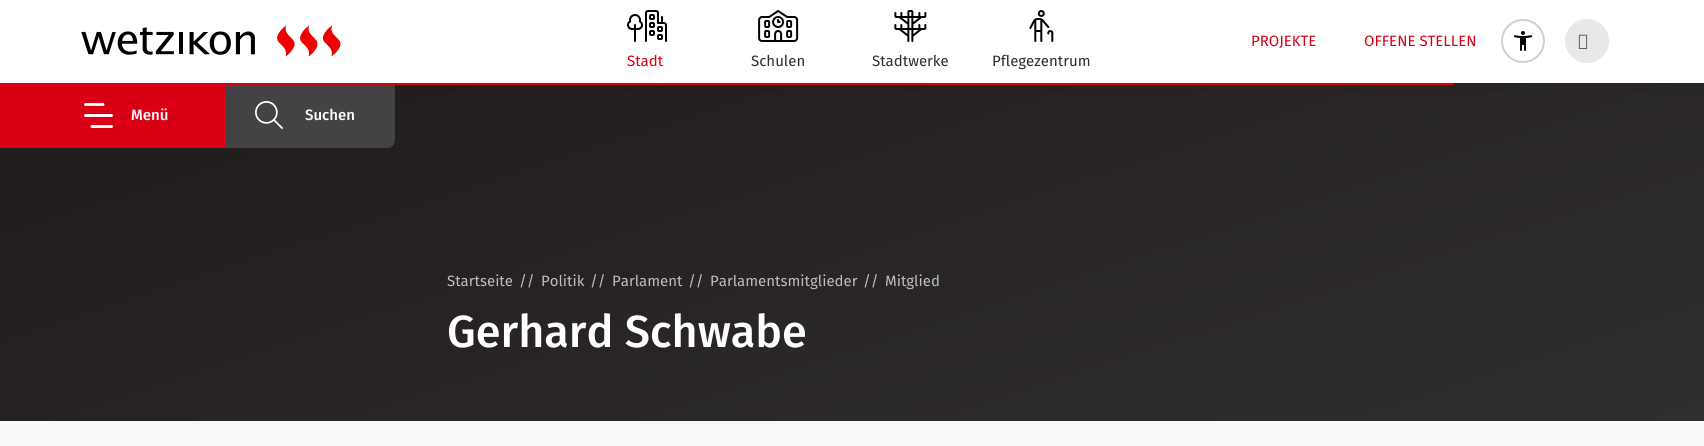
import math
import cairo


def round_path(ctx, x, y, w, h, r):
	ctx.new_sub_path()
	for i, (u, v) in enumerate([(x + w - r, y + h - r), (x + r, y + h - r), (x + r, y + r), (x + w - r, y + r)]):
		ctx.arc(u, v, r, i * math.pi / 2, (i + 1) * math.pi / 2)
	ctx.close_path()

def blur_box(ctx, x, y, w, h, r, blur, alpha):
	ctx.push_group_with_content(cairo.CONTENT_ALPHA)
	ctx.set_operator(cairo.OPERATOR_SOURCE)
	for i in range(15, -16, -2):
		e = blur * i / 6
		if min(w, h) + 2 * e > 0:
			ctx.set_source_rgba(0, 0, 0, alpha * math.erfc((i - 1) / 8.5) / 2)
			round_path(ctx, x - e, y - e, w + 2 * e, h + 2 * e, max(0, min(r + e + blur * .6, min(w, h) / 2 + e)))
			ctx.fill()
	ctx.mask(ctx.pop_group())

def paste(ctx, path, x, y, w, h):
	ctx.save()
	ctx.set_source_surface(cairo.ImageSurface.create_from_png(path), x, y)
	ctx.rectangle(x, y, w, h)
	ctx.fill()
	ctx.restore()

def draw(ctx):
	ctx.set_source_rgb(0.976, 0.973, 0.973)
	ctx.paint()
	gradient = cairo.LinearGradient(721, -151, 983, 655)
	gradient.add_color_stop_rgba(0, 0.129, 0.106, 0.106, 1)
	gradient.add_color_stop_rgba(1, 0.188, 0.18, 0.18, 1)
	ctx.set_source(gradient)
	ctx.rectangle(0, 83, 1704, 338)
	ctx.fill()
	ctx.set_source_rgb(0, 0, 0)
	blur_box(ctx, 0, 0, 1704, 83, 0, 8, 0.1)
	ctx.set_source_rgb(1, 1, 1)
	ctx.rectangle(0, 0, 1704, 83)
	ctx.fill()
	paste(ctx, 'media/1.png', 81, 25, 260, 32)
	ctx.select_font_face('Fira Sans')
	ctx.set_font_size(15)
	ctx.set_source_rgb(0.851, 0, 0.086)
	ctx.move_to(1251, 46)
	ctx.show_text('PROJEKTE')
	ctx.move_to(1364, 46)
	ctx.show_text('OFFENE STELLEN')
	paste(ctx, 'media/2.png', 1513, 31, 20, 20)
	ctx.arc(1523, 41, 21, 0, 2 * math.pi)
	ctx.set_source_rgb(0.816, 0.816, 0.816)
	ctx.stroke()
	ctx.set_source_rgb(0.91, 0.91, 0.91)
	ctx.arc(1587, 41, 22, 0, 2 * math.pi)
	ctx.fill()
	paste(ctx, 'media/3.png', 1578, 34, 10, 15)
	paste(ctx, 'media/4.png', 627, 10, 40, 32)
	ctx.set_source_rgb(0.851, 0, 0.086)
	ctx.move_to(627, 66)
	ctx.show_text('Stadt')
	paste(ctx, 'media/5.png', 758, 10, 41, 32)
	ctx.set_source_rgb(0.188, 0.173, 0.173)
	ctx.move_to(751, 66)
	ctx.show_text('Schulen')
	paste(ctx, 'media/6.png', 894, 10, 33, 32)
	ctx.move_to(872, 66)
	ctx.show_text('Stadtwerke')
	paste(ctx, 'media/7.png', 1029, 10, 25, 32)
	ctx.move_to(992, 66)
	ctx.show_text('Pflegezentrum')
	ctx.set_source_rgb(0.851, 0, 0.086)
	ctx.rectangle(0, 85, 225, 63)
	ctx.fill()
	ctx.new_path()
	ctx.move_to(85.5, 104.5)
	ctx.line_to(103, 104.5)
	ctx.move_to(85.5, 115.5)
	ctx.line_to(111.5, 115.5)
	ctx.move_to(111.5, 126.5)
	ctx.line_to(92, 126.5)
	ctx.set_source_rgb(1, 1, 1)
	ctx.set_line_width(2.9)
	ctx.set_line_cap(cairo.LINE_CAP_ROUND)
	ctx.stroke()
	ctx.select_font_face('Fira Sans Medium')
	ctx.move_to(131, 120)
	ctx.show_text('Menü')
	ctx.set_source_rgb(0.263, 0.263, 0.263)
	ctx.new_path()
	ctx.move_to(225, 83)
	ctx.line_to(395, 83)
	ctx.line_to(395, 140)
	ctx.curve_to(395, 144.5, 391.5, 148, 387, 148)
	ctx.line_to(225, 148)
	ctx.close_path()
	ctx.fill()
	paste(ctx, 'media/8.png', 255, 101, 28, 28)
	ctx.set_source_rgb(1, 1, 1)
	ctx.move_to(305, 120)
	ctx.show_text('Suchen')
	ctx.set_source_rgb(0.851, 0, 0.086)
	ctx.new_path()
	ctx.move_to(0, 83)
	ctx.line_to(1453, 83)
	ctx.curve_to(1453.5, 83, 1454, 83.5, 1454, 84)
	ctx.curve_to(1454, 84.5, 1453.5, 85, 1453, 85)
	ctx.line_to(0, 85)
	ctx.close_path()
	ctx.fill()
	ctx.select_font_face('Fira Sans')
	ctx.set_source_rgb(0.745, 0.741, 0.741)
	for x, y, s in [
		(447, 286, 'Startseite'),
		(519, 286, '//'),
		(541, 286, 'Politik'),
		(590, 286, '//'),
		(612, 286, 'Parlament'),
		(688, 286, '//'),
		(710, 286, 'Parlamentsmitglieder'),
		(863, 286, '//'),
		(885, 286, 'Mitglied'),
	]:
		ctx.move_to(x, y)
		ctx.show_text(s)
	ctx.select_font_face('Fira Sans Medium')
	ctx.set_font_size(45)
	ctx.set_source_rgb(1, 1, 1)
	ctx.move_to(447, 347)
	ctx.show_text('Gerhard Schwabe')


surface = cairo.ImageSurface(cairo.FORMAT_RGB24, 1704, 446)
ctx = cairo.Context(surface)
options = cairo.FontOptions()
options.set_hint_metrics(cairo.HINT_METRICS_OFF)
options.set_hint_style(cairo.HINT_STYLE_NONE)
ctx.set_font_options(options)
ctx.set_miter_limit(4)
draw(ctx)
surface.write_to_png('image.png')
